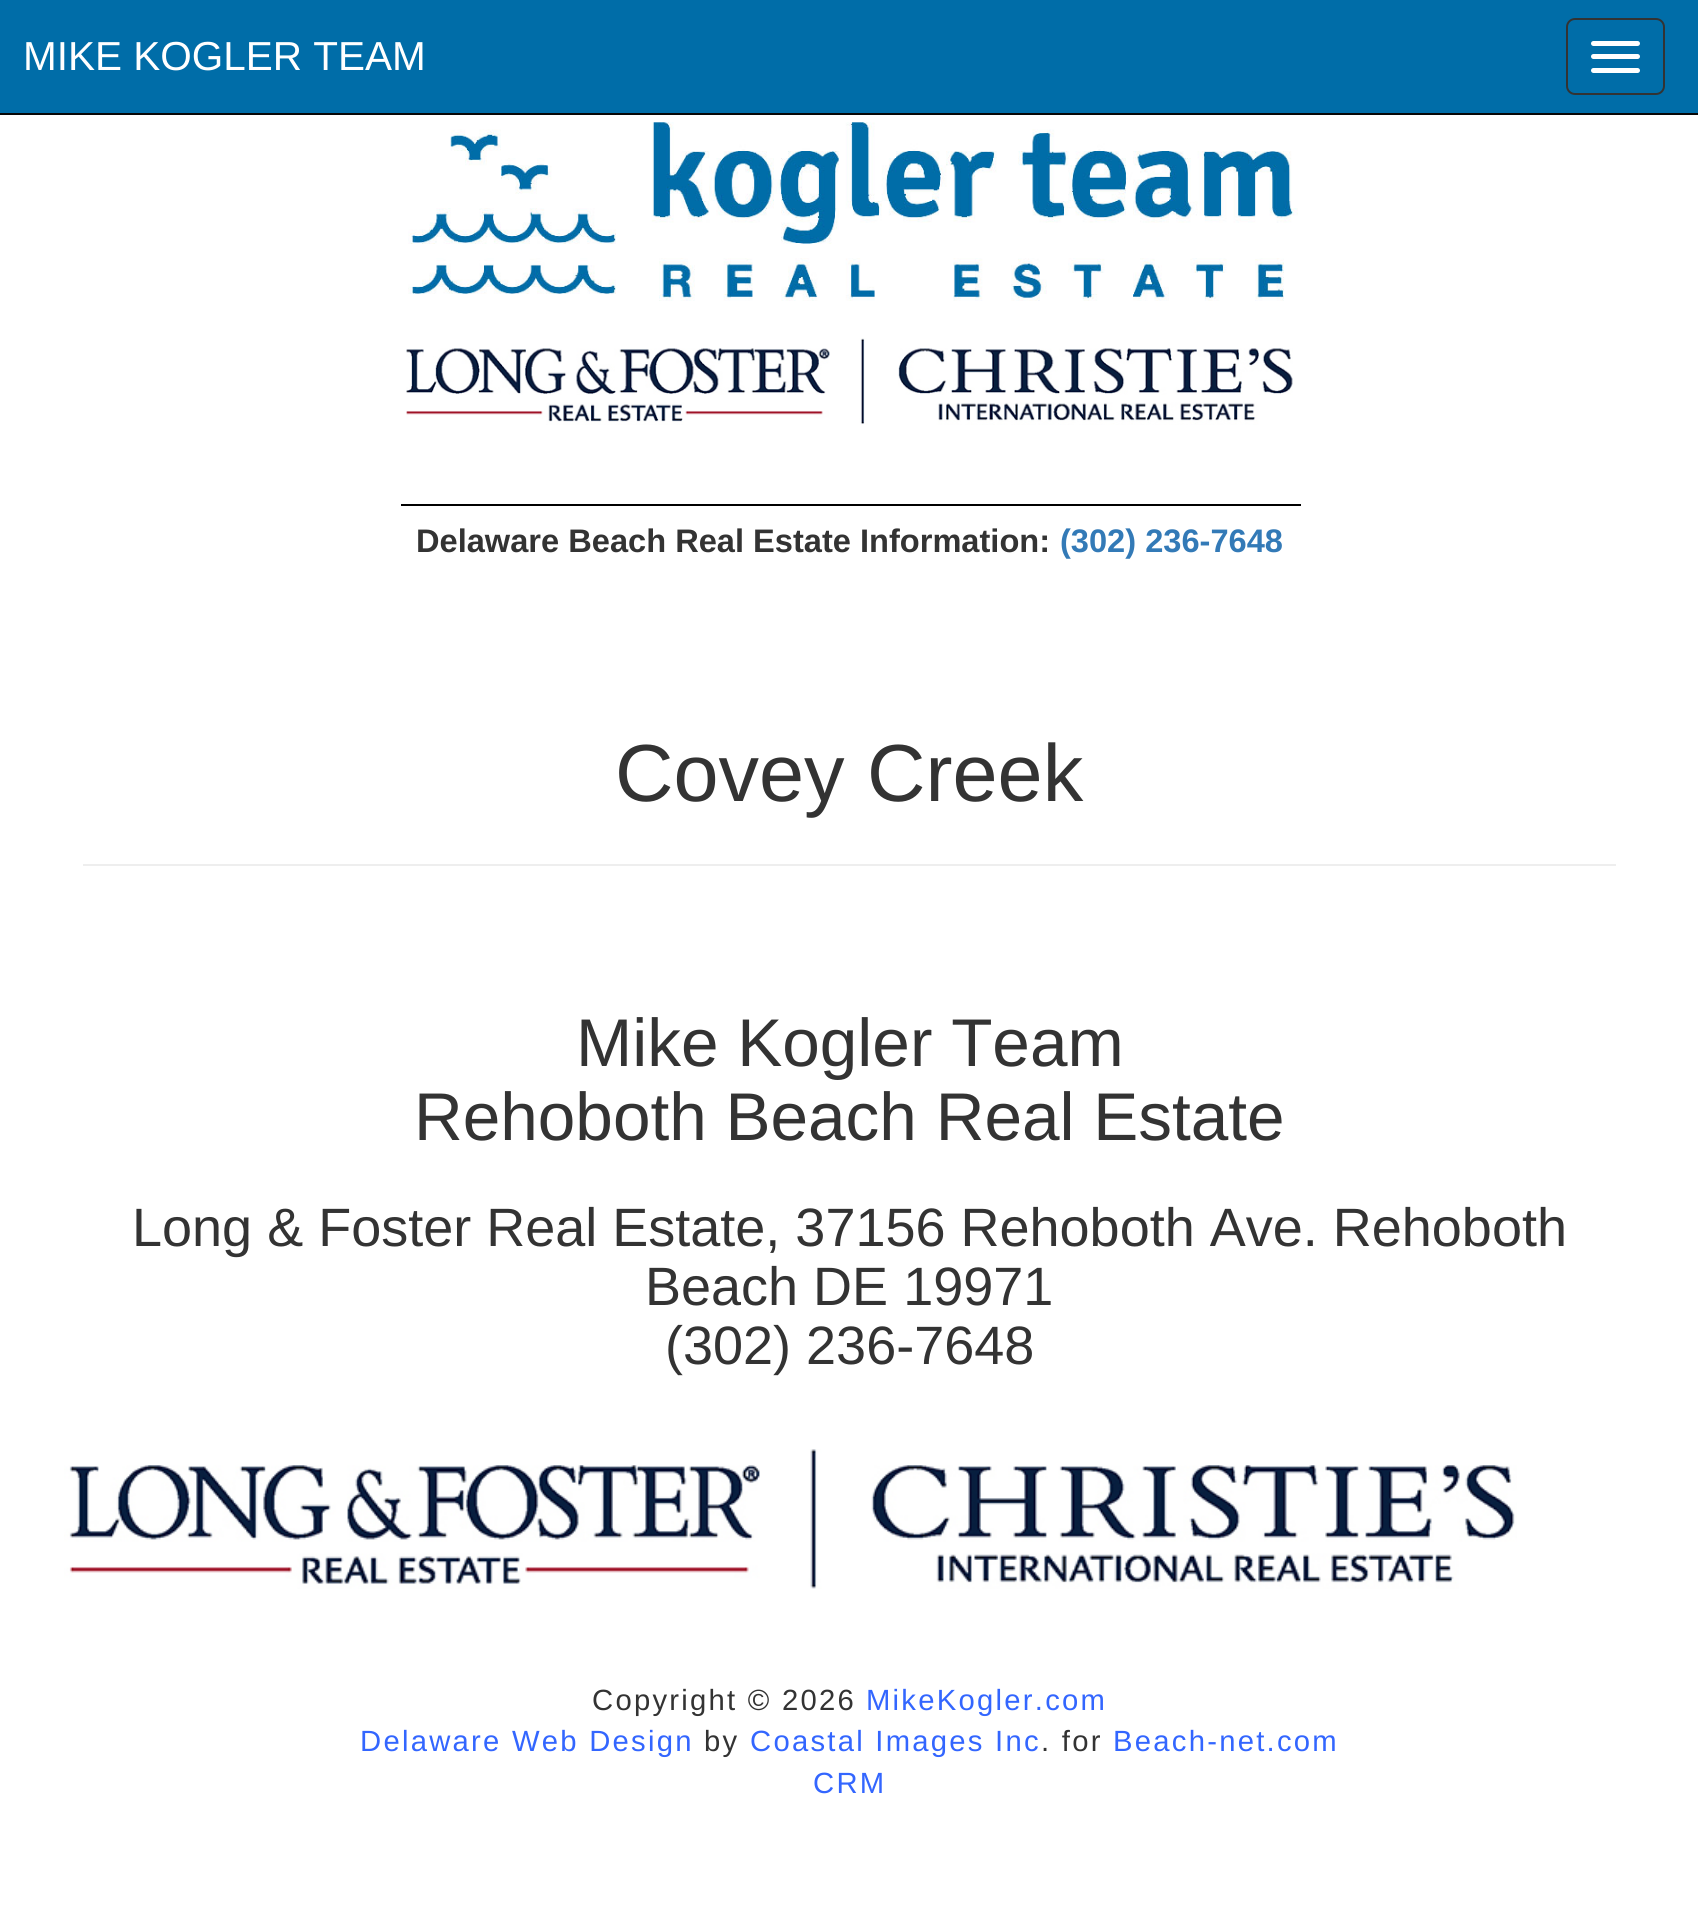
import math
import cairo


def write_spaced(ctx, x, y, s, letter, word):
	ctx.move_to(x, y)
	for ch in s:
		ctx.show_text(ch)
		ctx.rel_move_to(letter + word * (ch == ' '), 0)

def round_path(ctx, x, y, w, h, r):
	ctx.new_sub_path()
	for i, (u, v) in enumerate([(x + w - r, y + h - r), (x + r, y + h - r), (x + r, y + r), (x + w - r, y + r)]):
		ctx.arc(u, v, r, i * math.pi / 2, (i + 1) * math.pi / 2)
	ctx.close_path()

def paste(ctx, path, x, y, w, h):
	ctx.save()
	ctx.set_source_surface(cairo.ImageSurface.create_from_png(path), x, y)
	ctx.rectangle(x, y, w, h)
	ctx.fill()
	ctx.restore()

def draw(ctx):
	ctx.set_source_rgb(1, 1, 1)
	ctx.paint()
	ctx.set_source_rgb(0, 0.427, 0.659)
	ctx.rectangle(0, 0, 1698, 113)
	ctx.fill()
	ctx.set_source_rgb(0.031, 0.031, 0.031)
	ctx.rectangle(0, 113, 1698, 2)
	ctx.fill()
	ctx.select_font_face('Liberation Sans')
	ctx.set_font_size(40.5)
	ctx.set_source_rgb(1, 1, 1)
	ctx.move_to(23, 70)
	ctx.show_text('MIKE KOGLER TEAM')
	round_path(ctx, 1567, 19, 97, 75, 8)
	ctx.set_source_rgb(0.2, 0.2, 0.2)
	ctx.stroke()
	ctx.set_source_rgb(1, 1, 1)
	round_path(ctx, 1591, 41, 49, 5, 2.5)
	ctx.fill()
	round_path(ctx, 1591, 54, 49, 5, 2.5)
	ctx.fill()
	round_path(ctx, 1591, 68, 49, 5, 2.5)
	ctx.fill()
	paste(ctx, 'media/1.png', 408, 122, 890, 179)
	paste(ctx, 'media/2.png', 406, 338, 887, 87)
	ctx.set_source_rgb(0, 0, 0)
	ctx.rectangle(401, 504, 900, 2)
	ctx.fill()
	ctx.select_font_face('Liberation Sans', cairo.FONT_SLANT_NORMAL, cairo.FONT_WEIGHT_BOLD)
	ctx.set_font_size(32.6)
	ctx.set_source_rgb(0.2, 0.2, 0.2)
	ctx.move_to(416, 552)
	ctx.show_text('Delaware Beach Real Estate Information:')
	ctx.set_source_rgb(0.2, 0.478, 0.718)
	ctx.move_to(1060, 552)
	ctx.show_text('(302) 236-7648')
	ctx.select_font_face('Liberation Sans')
	ctx.set_font_size(81)
	ctx.set_source_rgb(0.2, 0.2, 0.2)
	ctx.move_to(615, 801)
	ctx.show_text('Covey Creek')
	ctx.set_source_rgb(0.933, 0.933, 0.933)
	ctx.rectangle(83, 864, 1533, 2)
	ctx.fill()
	ctx.set_font_size(67.5)
	ctx.set_source_rgb(0.2, 0.2, 0.2)
	ctx.move_to(576, 1066)
	ctx.show_text('Mike Kogler Team')
	ctx.move_to(414, 1140)
	ctx.show_text('Rehoboth Beach Real Estate')
	ctx.set_font_size(54)
	for x, y, s in [
		(132, 1246, 'Long & Foster Real Estate, 37156 Rehoboth Ave. Rehoboth'),
		(645, 1305, 'Beach DE 19971'),
		(665, 1364, '(302) 236-7648'),
	]:
		ctx.move_to(x, y)
		ctx.show_text(s)
	paste(ctx, 'media/3.png', 64, 1449, 1453, 140)
	ctx.set_font_size(29.25)
	write_spaced(ctx, 592, 1710, 'Copyright © 2026', 2.25, 0)
	ctx.set_source_rgb(0.2, 0.4, 1)
	write_spaced(ctx, 866, 1710, 'MikeKogler.com', 2.25, 0)
	write_spaced(ctx, 360, 1751, 'Delaware Web Design', 2.25, 0)
	ctx.set_source_rgb(0.2, 0.2, 0.2)
	write_spaced(ctx, 704, 1751, 'by', 2.25, 0)
	ctx.set_source_rgb(0.2, 0.4, 1)
	write_spaced(ctx, 750, 1751, 'Coastal Images Inc', 2.25, 0)
	ctx.set_source_rgb(0.2, 0.2, 0.2)
	write_spaced(ctx, 1041, 1751, '. for', 2.25, 0)
	ctx.set_source_rgb(0.2, 0.4, 1)
	write_spaced(ctx, 1113, 1751, 'Beach-net.com', 2.25, 0)
	write_spaced(ctx, 813, 1793, 'CRM', 2.25, 0)


surface = cairo.ImageSurface(cairo.FORMAT_RGB24, 1698, 1917)
ctx = cairo.Context(surface)
options = cairo.FontOptions()
options.set_hint_metrics(cairo.HINT_METRICS_OFF)
options.set_hint_style(cairo.HINT_STYLE_NONE)
ctx.set_font_options(options)
ctx.set_miter_limit(4)
draw(ctx)
surface.write_to_png('image.png')
